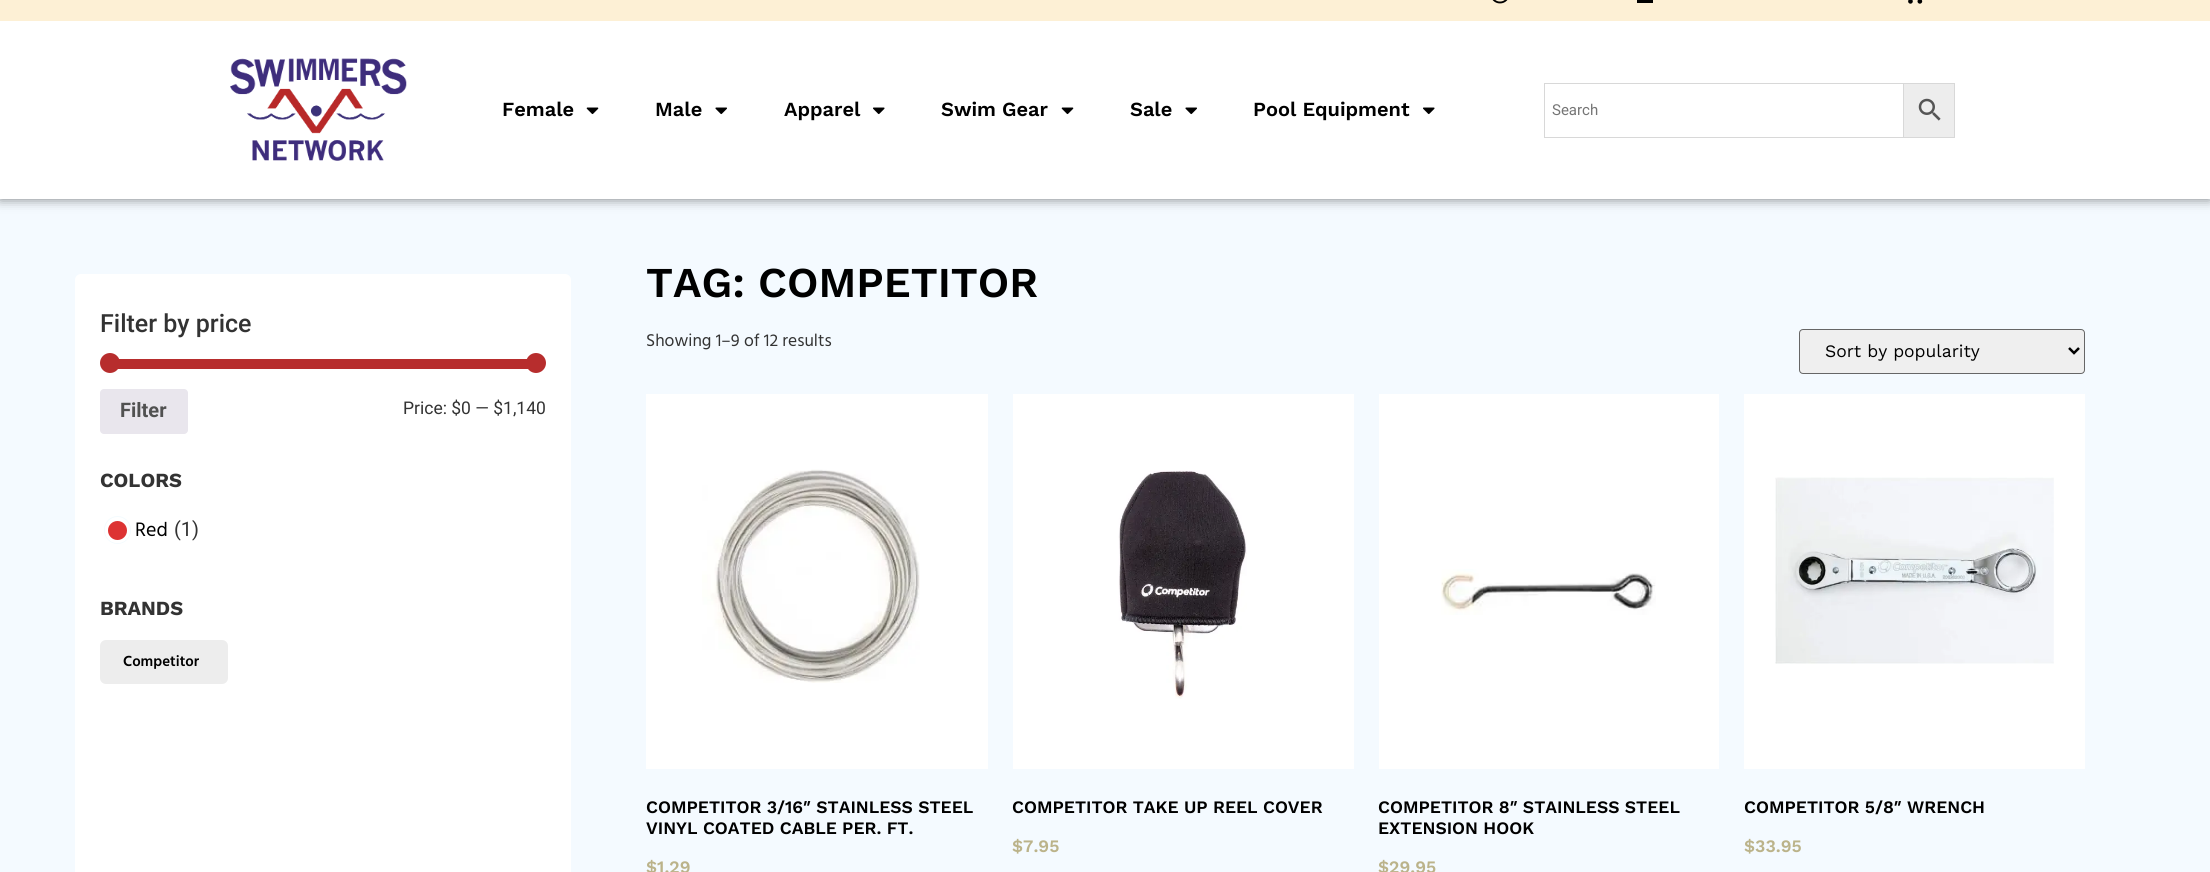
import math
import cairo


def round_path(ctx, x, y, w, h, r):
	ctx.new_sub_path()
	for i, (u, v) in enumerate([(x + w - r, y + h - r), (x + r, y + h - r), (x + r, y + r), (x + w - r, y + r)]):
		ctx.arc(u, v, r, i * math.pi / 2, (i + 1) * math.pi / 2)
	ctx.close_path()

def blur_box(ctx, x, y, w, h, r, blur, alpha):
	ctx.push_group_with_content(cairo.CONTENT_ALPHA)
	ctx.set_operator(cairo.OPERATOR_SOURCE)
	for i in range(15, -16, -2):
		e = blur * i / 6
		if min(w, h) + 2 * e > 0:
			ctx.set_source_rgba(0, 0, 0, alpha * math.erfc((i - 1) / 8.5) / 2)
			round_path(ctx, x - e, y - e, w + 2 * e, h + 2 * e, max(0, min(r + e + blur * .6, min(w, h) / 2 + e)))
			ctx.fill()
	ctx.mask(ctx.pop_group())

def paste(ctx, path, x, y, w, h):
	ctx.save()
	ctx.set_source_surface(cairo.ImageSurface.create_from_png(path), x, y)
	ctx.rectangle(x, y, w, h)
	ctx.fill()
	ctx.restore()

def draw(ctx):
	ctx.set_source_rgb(0.957, 0.98, 1)
	ctx.paint()
	ctx.set_source_rgb(0, 0, 0)
	blur_box(ctx, 0, 21, 2210, 178, 0, 6, 0.5)
	ctx.set_source_rgb(0.992, 0.941, 0.835)
	ctx.rectangle(0, 0, 2210, 21)
	ctx.fill()
	paste(ctx, 'media/1.png', 1492, 0, 16, 4)
	ctx.set_source_rgb(0, 0, 0)
	ctx.rectangle(1637, 0, 16, 3)
	ctx.fill()
	paste(ctx, 'media/2.png', 1908, 0, 15, 4)
	ctx.set_source_rgb(1, 1, 1)
	ctx.rectangle(0, 21, 2210, 178)
	ctx.fill()
	paste(ctx, 'media/3.png', 230, 58, 177, 103)
	ctx.select_font_face('Work Sans SemiBold')
	ctx.set_font_size(20)
	ctx.set_source_rgb(0, 0, 0)
	ctx.move_to(502, 116)
	ctx.show_text('Female')
	paste(ctx, 'media/4.png', 586, 107, 13, 8)
	ctx.move_to(655, 116)
	ctx.show_text('Male')
	paste(ctx, 'media/5.png', 715, 107, 12, 8)
	ctx.move_to(784, 116)
	ctx.show_text('Apparel')
	paste(ctx, 'media/6.png', 873, 107, 12, 8)
	ctx.move_to(941, 116)
	ctx.show_text('Swim Gear')
	paste(ctx, 'media/4.png', 1061, 107, 13, 8)
	ctx.move_to(1130, 116)
	ctx.show_text('Sale')
	paste(ctx, 'media/5.png', 1185, 107, 12, 8)
	ctx.move_to(1253, 116)
	ctx.show_text('Pool Equipment')
	paste(ctx, 'media/6.png', 1423, 107, 12, 8)
	ctx.set_source_rgb(0.929, 0.929, 0.929)
	ctx.rectangle(1903.5, 83.5, 51, 54)
	ctx.fill_preserve()
	ctx.set_source_rgb(0.847, 0.847, 0.847)
	ctx.set_line_width(1)
	ctx.stroke()
	ctx.rectangle(1544.5, 83.5, 359, 54)
	ctx.stroke()
	ctx.select_font_face('Roboto')
	ctx.set_font_size(15)
	ctx.set_source_rgb(0.459, 0.459, 0.459)
	ctx.move_to(1552, 115)
	ctx.show_text('Search')
	paste(ctx, 'media/7.png', 1918, 98, 23, 23)
	ctx.set_source_rgb(1, 1, 1)
	round_path(ctx, 75, 274, 496, 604, 6)
	ctx.fill()
	ctx.select_font_face('Roboto Medium')
	ctx.set_font_size(25)
	ctx.set_source_rgb(0.2, 0.2, 0.2)
	ctx.move_to(100, 332)
	ctx.show_text('Filter by price')
	ctx.set_source_rgb(0.718, 0.176, 0.176)
	ctx.rectangle(118, 359, 410, 10)
	ctx.fill()
	ctx.arc(110, 363, 10, 0, 2 * math.pi)
	ctx.fill()
	ctx.arc(536, 363, 10, 0, 2 * math.pi)
	ctx.fill()
	ctx.set_source_rgb(0.914, 0.902, 0.929)
	round_path(ctx, 100, 389, 88, 45, 4)
	ctx.fill()
	ctx.select_font_face('Roboto', cairo.FONT_SLANT_NORMAL, cairo.FONT_WEIGHT_BOLD)
	ctx.set_font_size(20)
	ctx.set_source_rgb(0.318, 0.318, 0.318)
	ctx.move_to(120, 417)
	ctx.show_text('Filter')
	ctx.select_font_face('Roboto')
	ctx.set_font_size(17.5)
	ctx.set_source_rgb(0.2, 0.2, 0.2)
	ctx.move_to(403, 414)
	ctx.show_text('Price: $0 — $1,140')
	ctx.select_font_face('Work Sans', cairo.FONT_SLANT_NORMAL, cairo.FONT_WEIGHT_BOLD)
	ctx.set_font_size(20)
	ctx.move_to(100, 487)
	ctx.show_text('COLORS')
	round_path(ctx, 104.5, 516.5, 26, 27, 13)
	ctx.set_source_rgb(0.957, 0.984, 0.996)
	ctx.stroke()
	ctx.set_source_rgb(0.867, 0.2, 0.2)
	ctx.arc(117.5, 530.5, 11, 0, 2 * math.pi)
	ctx.fill_preserve()
	ctx.set_source_rgb(1, 1, 1)
	ctx.set_line_width(3)
	ctx.stroke()
	ctx.select_font_face('Hind Madurai')
	ctx.set_source_rgb(0, 0, 0)
	ctx.move_to(135, 536)
	ctx.show_text('Red')
	ctx.select_font_face('Roboto')
	ctx.set_source_rgb(0.2, 0.2, 0.2)
	ctx.move_to(174, 536)
	ctx.show_text('(1)')
	ctx.select_font_face('Work Sans', cairo.FONT_SLANT_NORMAL, cairo.FONT_WEIGHT_BOLD)
	ctx.move_to(100, 615)
	ctx.show_text('BRANDS')
	ctx.set_source_rgb(0.929, 0.929, 0.929)
	round_path(ctx, 100, 640, 128, 44, 6)
	ctx.fill()
	ctx.select_font_face('Hind Madurai SemiBold')
	ctx.set_font_size(15)
	ctx.set_source_rgb(0, 0, 0)
	ctx.move_to(123, 666)
	ctx.show_text('Competitor')
	ctx.select_font_face('Work Sans SemiBold')
	ctx.set_font_size(42.5)
	ctx.move_to(646, 297)
	ctx.show_text('TAG: COMPETITOR')
	ctx.select_font_face('Hind Madurai')
	ctx.set_font_size(17.5)
	ctx.set_source_rgb(0.2, 0.2, 0.2)
	ctx.move_to(646, 346)
	ctx.show_text('Showing 1–9 of 12 results')
	ctx.set_source_rgb(0.937, 0.937, 0.937)
	round_path(ctx, 1799.5, 329.5, 285, 44, 3.5)
	ctx.fill_preserve()
	ctx.set_source_rgb(0.4, 0.4, 0.4)
	ctx.set_line_width(1)
	ctx.stroke()
	ctx.new_path()
	ctx.move_to(2069, 348)
	ctx.line_to(2074, 353)
	ctx.line_to(2079, 348)
	ctx.set_source_rgb(0, 0, 0)
	ctx.set_line_width(2.5)
	ctx.stroke()
	ctx.select_font_face('Work Sans')
	ctx.move_to(1825, 357)
	ctx.show_text('Sort by popularity')
	ctx.set_source_rgb(1, 1, 1)
	ctx.rectangle(646, 394, 342, 375)
	ctx.fill()
	paste(ctx, 'media/8.png', 702, 469, 218, 214)
	ctx.select_font_face('Work Sans SemiBold')
	ctx.set_source_rgb(0, 0, 0)
	ctx.move_to(646, 813)
	ctx.show_text('COMPETITOR 3/16″ STAINLESS STEEL')
	ctx.move_to(646, 834)
	ctx.show_text('VINYL COATED CABLE PER. FT.')
	ctx.set_source_rgb(0.733, 0.702, 0.541)
	ctx.move_to(646, 873)
	ctx.show_text('$1.29')
	ctx.set_source_rgb(1, 1, 1)
	ctx.rectangle(1013, 394, 341, 375)
	ctx.fill()
	paste(ctx, 'media/9.png', 1118, 470, 129, 229)
	ctx.set_source_rgb(0, 0, 0)
	ctx.move_to(1012, 813)
	ctx.show_text('COMPETITOR TAKE UP REEL COVER')
	ctx.set_source_rgb(0.733, 0.702, 0.541)
	ctx.move_to(1012, 852)
	ctx.show_text('$7.95')
	ctx.set_source_rgb(1, 1, 1)
	ctx.rectangle(1379, 394, 340, 375)
	ctx.fill()
	paste(ctx, 'media/10.png', 1441, 569, 215, 46)
	ctx.set_source_rgb(0, 0, 0)
	ctx.move_to(1378, 813)
	ctx.show_text('COMPETITOR 8″ STAINLESS STEEL')
	ctx.move_to(1378, 834)
	ctx.show_text('EXTENSION HOOK')
	ctx.set_source_rgb(0.733, 0.702, 0.541)
	ctx.move_to(1378, 873)
	ctx.show_text('$29.95')
	ctx.set_source_rgb(1, 1, 1)
	ctx.rectangle(1744, 394, 341, 375)
	ctx.fill()
	paste(ctx, 'media/11.png', 1775, 477, 279, 187)
	ctx.set_source_rgb(0, 0, 0)
	ctx.move_to(1744, 813)
	ctx.show_text('COMPETITOR 5/8″ WRENCH')
	ctx.set_source_rgb(0.733, 0.702, 0.541)
	ctx.move_to(1744, 852)
	ctx.show_text('$33.95')


surface = cairo.ImageSurface(cairo.FORMAT_RGB24, 2210, 872)
ctx = cairo.Context(surface)
options = cairo.FontOptions()
options.set_hint_metrics(cairo.HINT_METRICS_OFF)
options.set_hint_style(cairo.HINT_STYLE_NONE)
ctx.set_font_options(options)
ctx.set_miter_limit(4)
draw(ctx)
surface.write_to_png('image.png')
